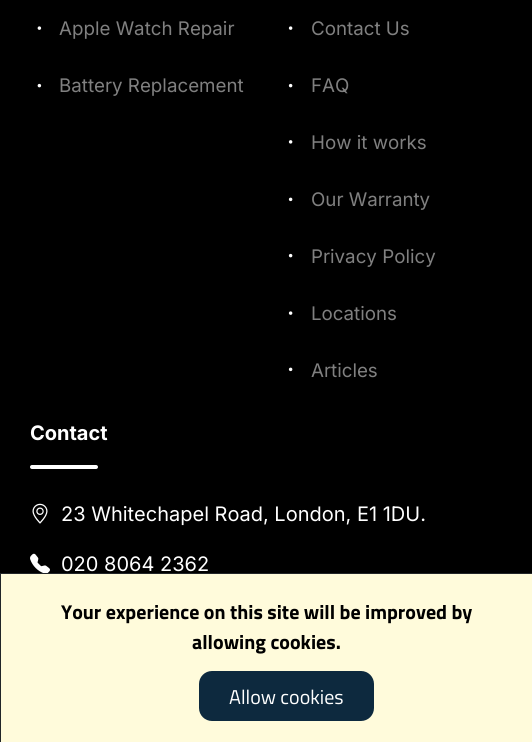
import math
import cairo


def round_path(ctx, x, y, w, h, r):
	ctx.new_sub_path()
	for i, (u, v) in enumerate([(x + w - r, y + h - r), (x + r, y + h - r), (x + r, y + r), (x + w - r, y + r)]):
		ctx.arc(u, v, r, i * math.pi / 2, (i + 1) * math.pi / 2)
	ctx.close_path()

def paste(ctx, path, x, y, w, h):
	ctx.save()
	ctx.set_source_surface(cairo.ImageSurface.create_from_png(path), x, y)
	ctx.rectangle(x, y, w, h)
	ctx.fill()
	ctx.restore()

def draw(ctx):
	ctx.set_source_rgb(0, 0, 0)
	ctx.paint()
	paste(ctx, 'media/1.png', 37, 26, 5, 4)
	ctx.select_font_face('Inter')
	ctx.set_font_size(18.75)
	ctx.set_source_rgb(0.502, 0.502, 0.502)
	ctx.move_to(59, 35)
	ctx.show_text('Apple Watch Repair')
	paste(ctx, 'media/2.png', 37, 83, 5, 5)
	ctx.move_to(59, 92)
	ctx.show_text('Battery Replacement')
	paste(ctx, 'media/3.png', 288, 26, 5, 4)
	ctx.move_to(311, 35)
	ctx.show_text('Contact Us')
	paste(ctx, 'media/4.png', 288, 83, 5, 5)
	ctx.move_to(311, 92)
	ctx.show_text('FAQ')
	paste(ctx, 'media/5.png', 288, 140, 5, 4)
	ctx.move_to(311, 149)
	ctx.show_text('How it works')
	paste(ctx, 'media/6.png', 288, 197, 5, 5)
	ctx.move_to(311, 206)
	ctx.show_text('Our Warranty')
	paste(ctx, 'media/4.png', 288, 253, 5, 5)
	ctx.move_to(311, 263)
	ctx.show_text('Privacy Policy')
	paste(ctx, 'media/3.png', 288, 311, 5, 4)
	ctx.move_to(311, 320)
	ctx.show_text('Locations')
	paste(ctx, 'media/6.png', 288, 367, 5, 5)
	ctx.move_to(311, 377)
	ctx.show_text('Articles')
	ctx.select_font_face('Inter', cairo.FONT_SLANT_NORMAL, cairo.FONT_WEIGHT_BOLD)
	ctx.set_font_size(20)
	ctx.set_source_rgb(1, 1, 1)
	ctx.move_to(30, 440)
	ctx.show_text('Contact')
	round_path(ctx, 30, 465, 68, 4, 2)
	ctx.fill()
	paste(ctx, 'media/7.png', 32, 503, 16, 21)
	ctx.select_font_face('Inter')
	ctx.move_to(61, 521)
	ctx.show_text('23 Whitechapel Road, London, E1 1DU.')
	paste(ctx, 'media/8.png', 30, 553, 20, 20)
	ctx.move_to(61, 571)
	ctx.show_text('020 8064 2362')
	ctx.set_source_rgb(1, 0.984, 0.859)
	ctx.rectangle(0.5, 573.5, 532, 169)
	ctx.fill_preserve()
	ctx.set_source_rgb(0.129, 0.145, 0.161)
	ctx.set_line_width(1)
	ctx.stroke()
	ctx.select_font_face('Titillium Web', cairo.FONT_SLANT_NORMAL, cairo.FONT_WEIGHT_BOLD)
	ctx.set_source_rgb(0, 0, 0)
	ctx.move_to(61, 619)
	ctx.show_text('Your experience on this site will be improved by')
	ctx.move_to(192, 649)
	ctx.show_text('allowing cookies.')
	ctx.set_source_rgb(0.051, 0.161, 0.243)
	round_path(ctx, 199, 671, 175, 50, 13)
	ctx.fill()
	ctx.select_font_face('Titillium Web')
	ctx.set_source_rgb(1, 1, 1)
	ctx.move_to(229, 704)
	ctx.show_text('Allow cookies')


surface = cairo.ImageSurface(cairo.FORMAT_RGB24, 532, 742)
ctx = cairo.Context(surface)
options = cairo.FontOptions()
options.set_hint_metrics(cairo.HINT_METRICS_OFF)
options.set_hint_style(cairo.HINT_STYLE_NONE)
ctx.set_font_options(options)
ctx.set_miter_limit(4)
draw(ctx)
surface.write_to_png('image.png')
